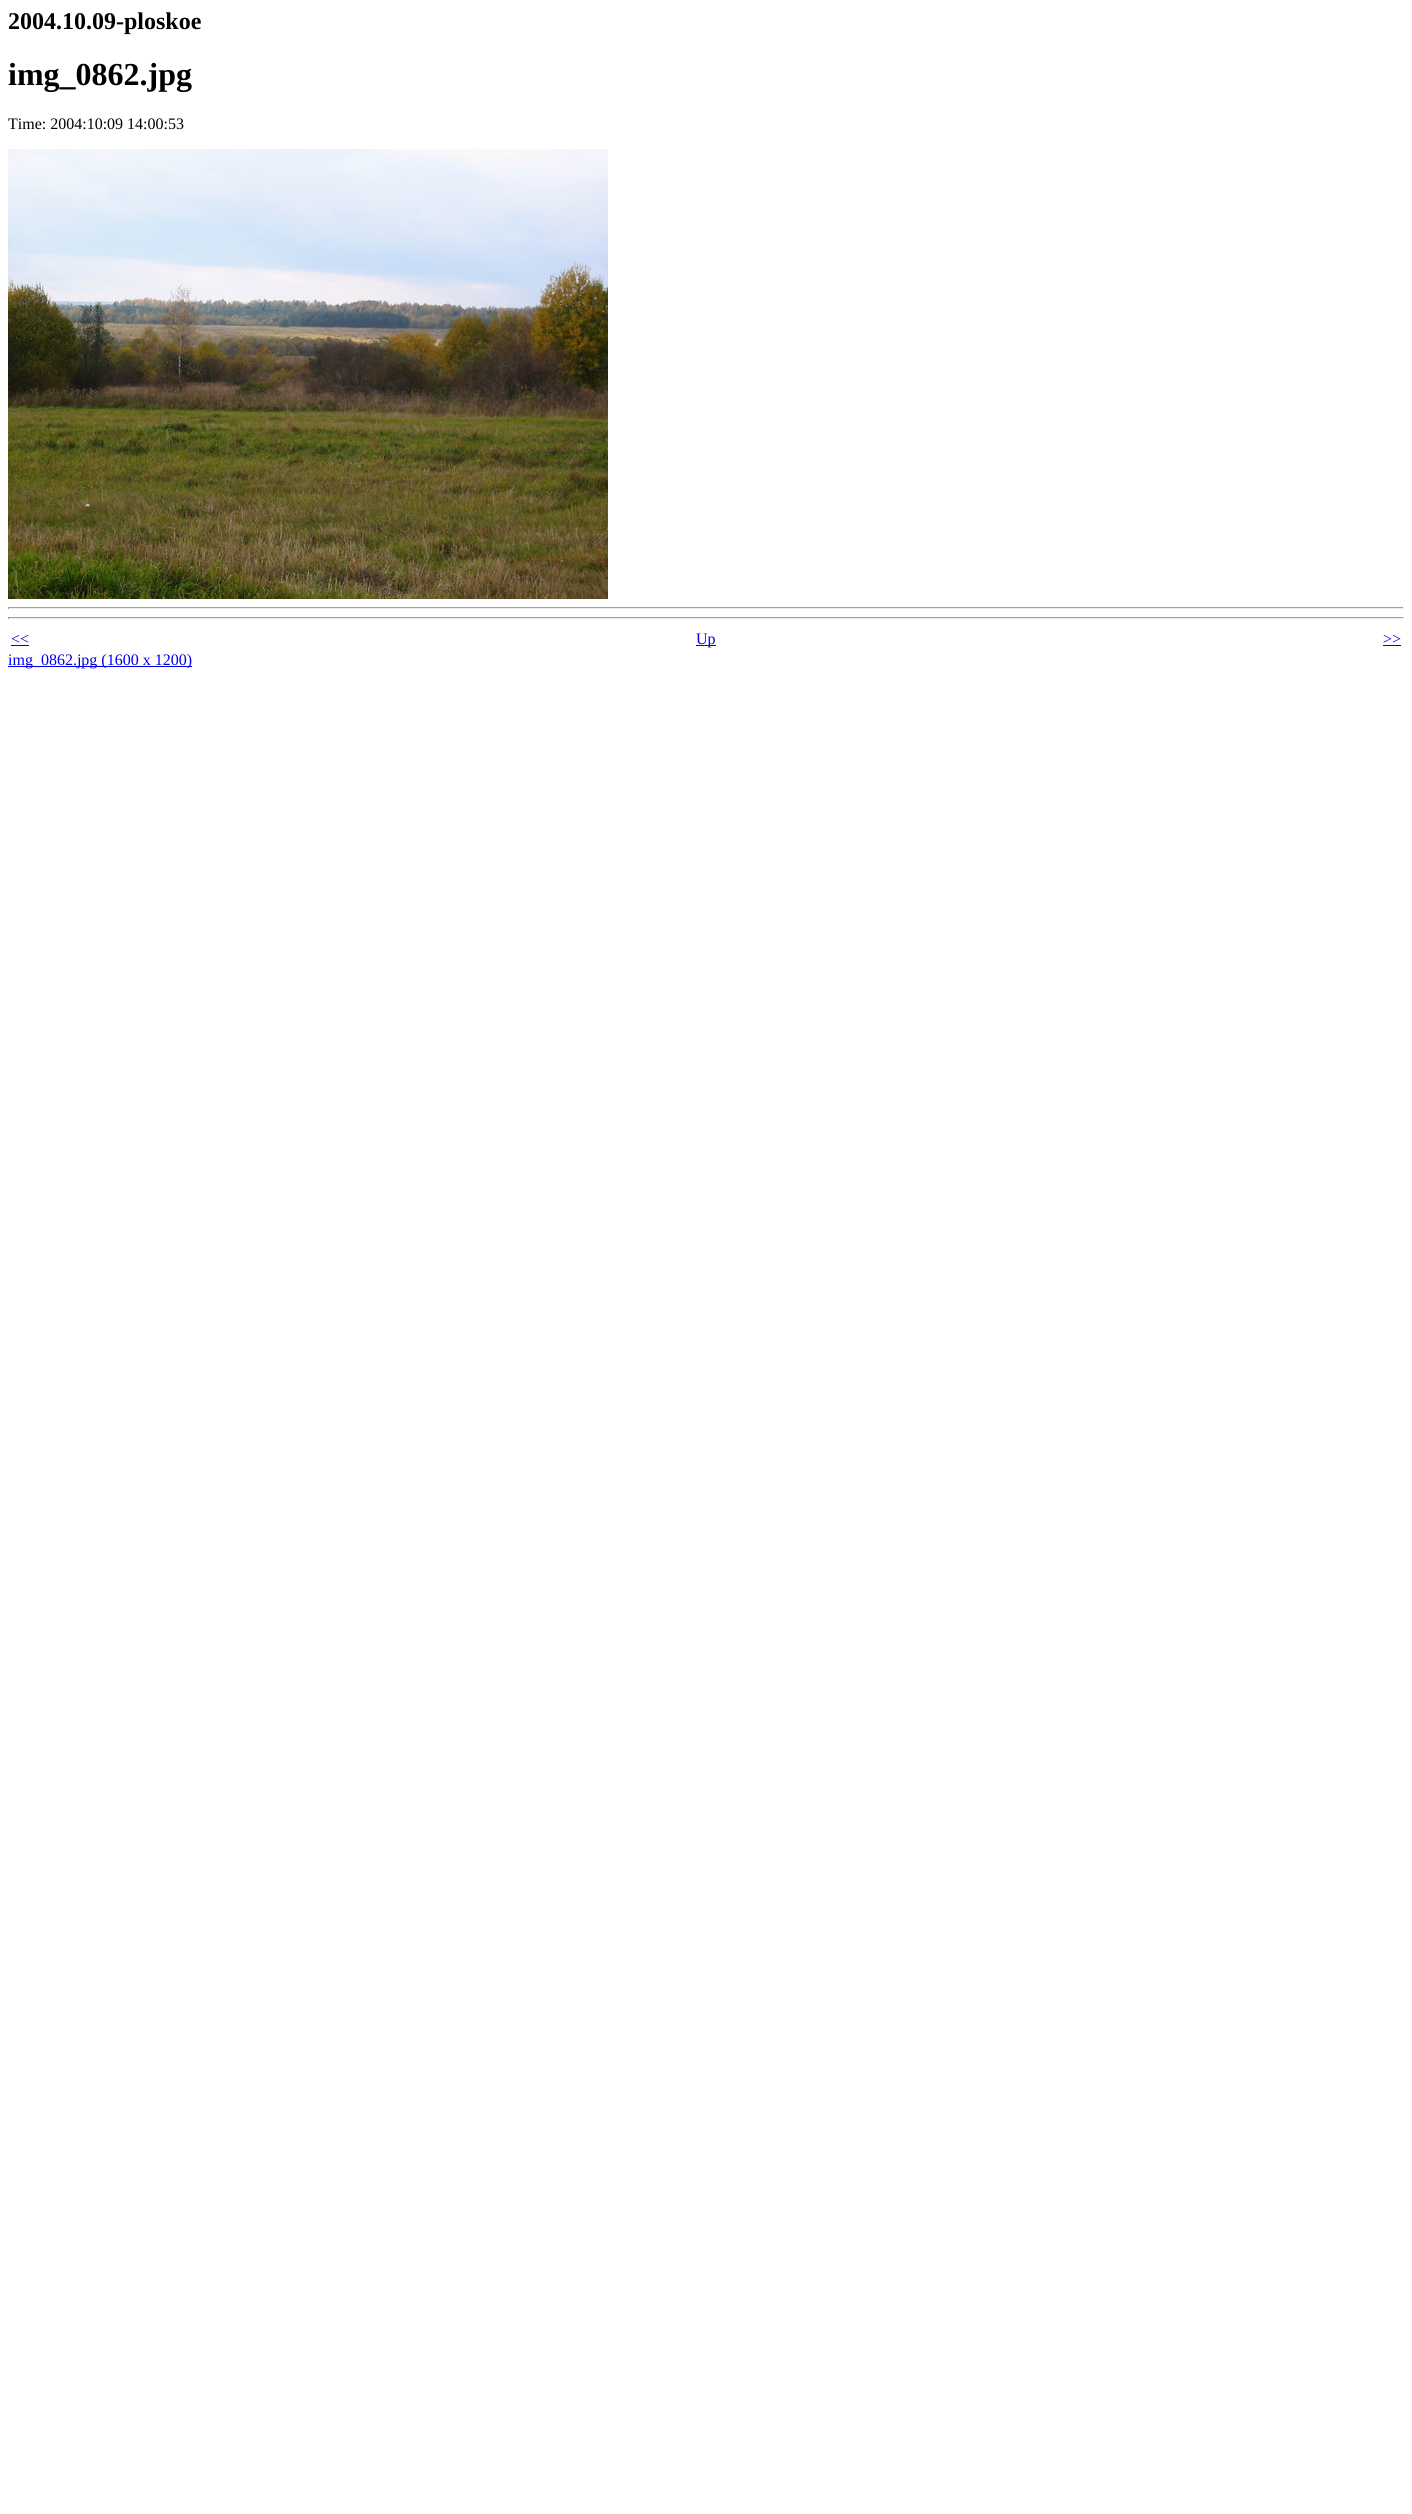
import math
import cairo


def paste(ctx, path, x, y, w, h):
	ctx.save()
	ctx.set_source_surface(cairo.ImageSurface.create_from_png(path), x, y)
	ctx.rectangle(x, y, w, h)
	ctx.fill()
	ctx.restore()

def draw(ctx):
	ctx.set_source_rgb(1, 1, 1)
	ctx.paint()
	ctx.select_font_face('Liberation Serif', cairo.FONT_SLANT_NORMAL, cairo.FONT_WEIGHT_BOLD)
	ctx.set_font_size(24)
	ctx.set_source_rgb(0, 0, 0)
	ctx.move_to(8, 29)
	ctx.show_text('2004.10.09-ploskoe')
	ctx.set_font_size(32)
	ctx.move_to(8, 85)
	ctx.show_text('img_0862.jpg')
	ctx.select_font_face('Liberation Serif')
	ctx.set_font_size(16)
	ctx.move_to(8, 129)
	ctx.show_text('Time: 2004:10:09 14:00:53')
	paste(ctx, 'media/1.png', 8, 149, 600, 450)
	ctx.set_source_rgb(0.624, 0.624, 0.624)
	ctx.rectangle(8, 607, 1396, 1)
	ctx.fill()
	ctx.set_source_rgb(0.933, 0.933, 0.933)
	ctx.rectangle(1403, 607, 1, 2)
	ctx.rectangle(8, 608, 1396, 1)
	ctx.fill()
	ctx.set_source_rgb(0.624, 0.624, 0.624)
	ctx.rectangle(8, 607, 1, 2)
	ctx.rectangle(8, 617, 1396, 1)
	ctx.fill()
	ctx.set_source_rgb(0.933, 0.933, 0.933)
	ctx.rectangle(1403, 617, 1, 2)
	ctx.rectangle(8, 618, 1396, 1)
	ctx.fill()
	ctx.set_source_rgb(0.624, 0.624, 0.624)
	ctx.rectangle(8, 617, 1, 2)
	ctx.fill()
	ctx.set_source_rgb(0, 0, 0.933)
	ctx.move_to(11, 644)
	ctx.show_text('<<')
	ctx.rectangle(11, 645, 18, 1)
	ctx.fill()
	ctx.rectangle(696, 645, 20, 1)
	ctx.fill()
	ctx.move_to(696, 644)
	ctx.show_text('Up')
	ctx.move_to(1383, 644)
	ctx.show_text('>>')
	ctx.rectangle(1383, 645, 18, 1)
	ctx.fill()
	ctx.rectangle(8, 666, 184, 1)
	ctx.fill()
	ctx.move_to(8, 665)
	ctx.show_text('img_0862.jpg (1600 x 1200)')


surface = cairo.ImageSurface(cairo.FORMAT_RGB24, 1412, 2514)
ctx = cairo.Context(surface)
options = cairo.FontOptions()
options.set_hint_metrics(cairo.HINT_METRICS_OFF)
options.set_hint_style(cairo.HINT_STYLE_NONE)
ctx.set_font_options(options)
ctx.set_miter_limit(4)
draw(ctx)
surface.write_to_png('image.png')
